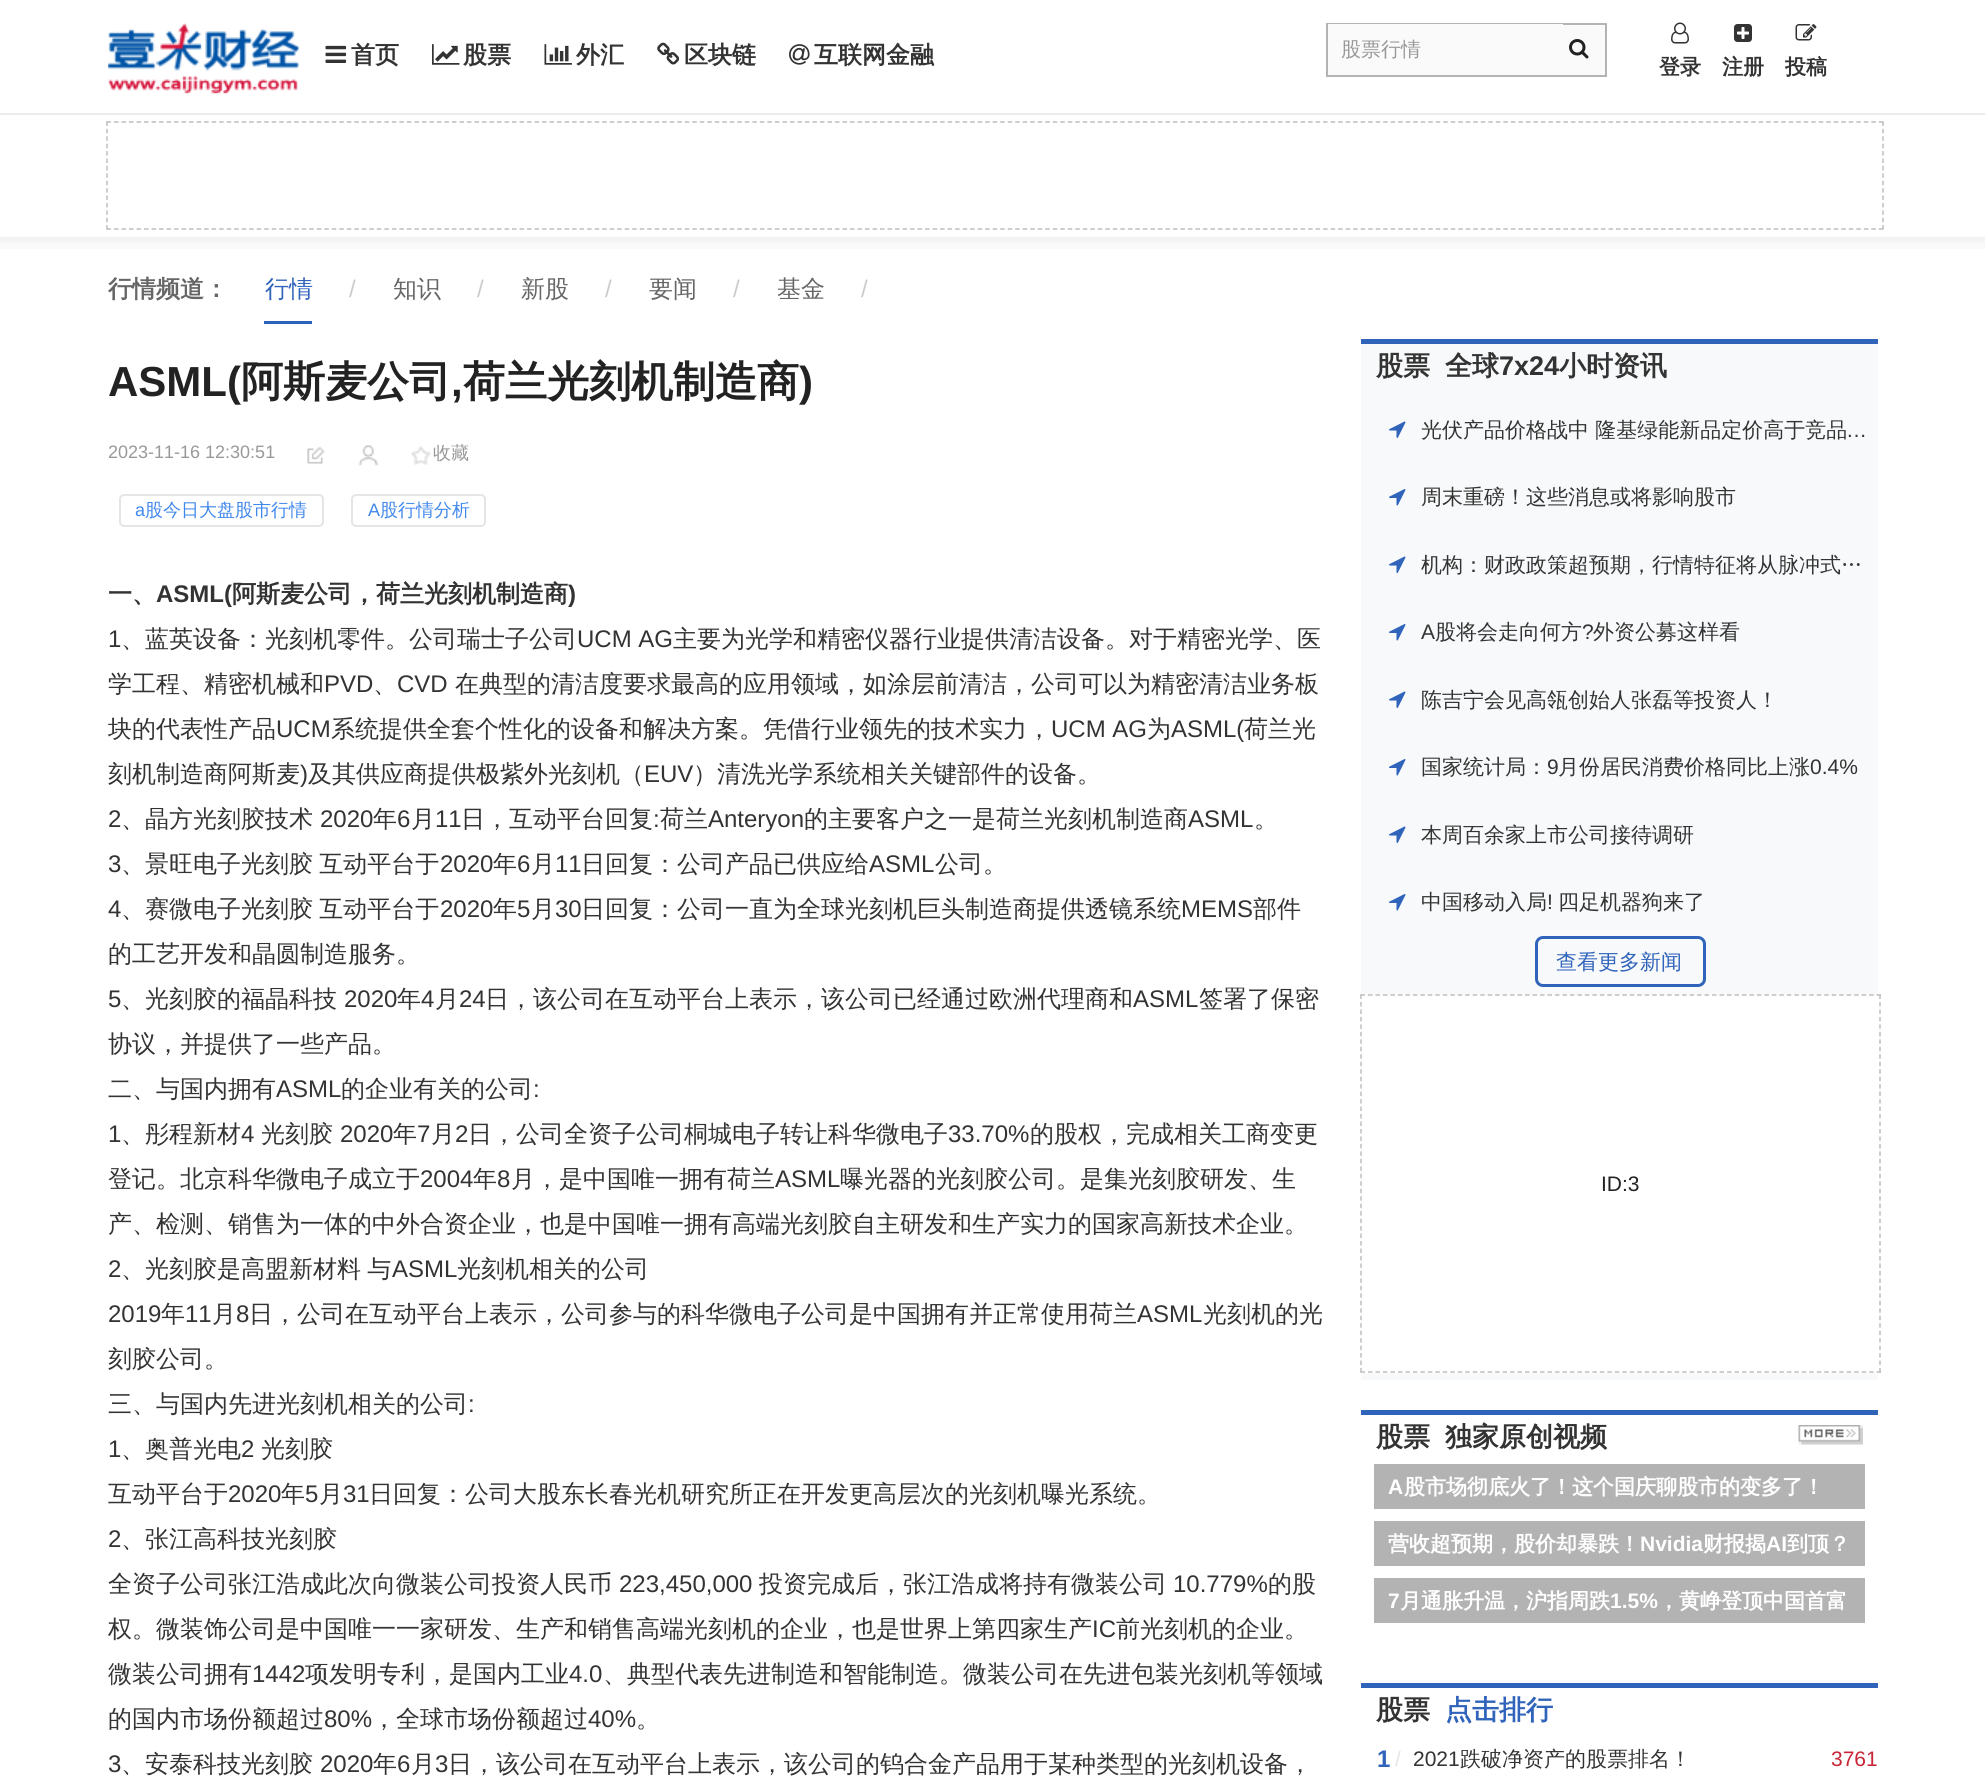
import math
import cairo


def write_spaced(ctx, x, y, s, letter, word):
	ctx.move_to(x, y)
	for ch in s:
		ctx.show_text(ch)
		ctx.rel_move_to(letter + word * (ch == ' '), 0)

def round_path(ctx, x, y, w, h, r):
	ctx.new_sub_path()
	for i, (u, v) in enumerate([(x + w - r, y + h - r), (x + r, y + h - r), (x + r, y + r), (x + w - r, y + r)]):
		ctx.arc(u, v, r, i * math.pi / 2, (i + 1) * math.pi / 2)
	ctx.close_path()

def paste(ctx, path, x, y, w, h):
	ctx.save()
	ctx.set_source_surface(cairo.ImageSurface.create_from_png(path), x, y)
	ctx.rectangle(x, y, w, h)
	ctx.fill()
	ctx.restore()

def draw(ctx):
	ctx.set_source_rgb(1, 1, 1)
	ctx.paint()
	ctx.set_source_rgb(0.922, 0.922, 0.922)
	ctx.rectangle(0, 113, 1985, 2)
	ctx.fill()
	paste(ctx, 'media/1.png', 108, 23, 191, 71)
	paste(ctx, 'media/2.png', 325, 45, 22, 18)
	ctx.select_font_face('WenQuanYi Zen Hei', cairo.FONT_SLANT_NORMAL, cairo.FONT_WEIGHT_BOLD)
	ctx.set_font_size(24)
	ctx.set_source_rgb(0.2, 0.2, 0.2)
	ctx.move_to(351, 63)
	ctx.show_text('首页')
	paste(ctx, 'media/3.png', 432, 44, 28, 21)
	ctx.move_to(463, 63)
	ctx.show_text('股票')
	paste(ctx, 'media/4.png', 544, 44, 28, 21)
	ctx.move_to(576, 63)
	ctx.show_text('外汇')
	paste(ctx, 'media/5.png', 657, 42, 23, 23)
	ctx.move_to(684, 63)
	ctx.show_text('区块链')
	paste(ctx, 'media/6.png', 789, 44, 21, 21)
	ctx.move_to(814, 63)
	ctx.show_text('互联网金融')
	ctx.set_source_rgb(0.98, 0.98, 0.98)
	ctx.rectangle(1563, 25, 42, 50)
	ctx.fill()
	ctx.rectangle(1327, 24, 279, 52)
	ctx.set_source_rgb(0.702, 0.702, 0.702)
	ctx.stroke()
	ctx.set_source_rgb(0.98, 0.98, 0.98)
	ctx.rectangle(1328, 24, 235, 51)
	ctx.fill()
	ctx.select_font_face('WenQuanYi Zen Hei Medium')
	ctx.set_font_size(20)
	ctx.set_source_rgb(0.6, 0.6, 0.6)
	ctx.move_to(1341, 56)
	ctx.show_text('股票行情')
	paste(ctx, 'media/7.png', 1569, 39, 20, 20)
	paste(ctx, 'media/8.png', 1671, 22, 18, 22)
	ctx.select_font_face('WenQuanYi Zen Hei', cairo.FONT_SLANT_NORMAL, cairo.FONT_WEIGHT_BOLD)
	ctx.set_font_size(21)
	ctx.set_source_rgb(0.2, 0.2, 0.2)
	ctx.move_to(1659, 74)
	ctx.show_text('登录')
	paste(ctx, 'media/9.png', 1734, 24, 18, 18)
	ctx.move_to(1722, 74)
	ctx.show_text('注册')
	paste(ctx, 'media/10.png', 1795, 24, 22, 17)
	ctx.move_to(1785, 74)
	ctx.show_text('投稿')
	ctx.new_path()
	ctx.move_to(106.5, 122)
	ctx.line_to(1884, 122)
	ctx.set_source_rgb(0.745, 0.745, 0.745)
	ctx.set_line_width(1.5)
	ctx.set_dash([4.5, 3.01])
	ctx.stroke()
	ctx.new_path()
	ctx.move_to(1883, 121.5)
	ctx.line_to(1883, 229.5)
	ctx.set_dash([4.5, 2.9])
	ctx.stroke()
	ctx.new_path()
	ctx.move_to(106.5, 229)
	ctx.line_to(1884, 229)
	ctx.set_dash([4.5, 3.01])
	ctx.stroke()
	ctx.new_path()
	ctx.move_to(107, 121.5)
	ctx.line_to(107, 229.5)
	ctx.set_dash([4.5, 2.9])
	ctx.stroke()
	paste(ctx, 'media/11.png', 0, 237, 1985, 12)
	ctx.set_font_size(24)
	ctx.set_source_rgb(0.4, 0.4, 0.4)
	ctx.move_to(108, 297)
	ctx.show_text('行情频道：')
	ctx.set_source_rgb(0.173, 0.38, 0.725)
	ctx.rectangle(264, 321, 48, 3)
	ctx.fill()
	ctx.select_font_face('WenQuanYi Zen Hei Medium')
	ctx.set_source_rgb(0.188, 0.392, 0.733)
	ctx.move_to(265, 297)
	ctx.show_text('行情')
	ctx.select_font_face('Liberation Sans')
	ctx.set_source_rgb(0.8, 0.8, 0.8)
	ctx.move_to(349, 297)
	ctx.show_text('/')
	ctx.select_font_face('WenQuanYi Zen Hei Medium')
	ctx.set_source_rgb(0.4, 0.4, 0.4)
	ctx.move_to(393, 297)
	ctx.show_text('知识')
	ctx.select_font_face('Liberation Sans')
	ctx.set_source_rgb(0.8, 0.8, 0.8)
	ctx.move_to(477, 297)
	ctx.show_text('/')
	ctx.select_font_face('WenQuanYi Zen Hei Medium')
	ctx.set_source_rgb(0.4, 0.4, 0.4)
	ctx.move_to(521, 297)
	ctx.show_text('新股')
	ctx.select_font_face('Liberation Sans')
	ctx.set_source_rgb(0.8, 0.8, 0.8)
	ctx.move_to(605, 297)
	ctx.show_text('/')
	ctx.select_font_face('WenQuanYi Zen Hei Medium')
	ctx.set_source_rgb(0.4, 0.4, 0.4)
	ctx.move_to(649, 297)
	ctx.show_text('要闻')
	ctx.select_font_face('Liberation Sans')
	ctx.set_source_rgb(0.8, 0.8, 0.8)
	ctx.move_to(733, 297)
	ctx.show_text('/')
	ctx.select_font_face('WenQuanYi Zen Hei Medium')
	ctx.set_source_rgb(0.4, 0.4, 0.4)
	ctx.move_to(777, 297)
	ctx.show_text('基金')
	ctx.select_font_face('Liberation Sans')
	ctx.set_source_rgb(0.8, 0.8, 0.8)
	ctx.move_to(861, 297)
	ctx.show_text('/')
	ctx.select_font_face('Liberation Sans', cairo.FONT_SLANT_NORMAL, cairo.FONT_WEIGHT_BOLD)
	ctx.set_font_size(42)
	ctx.set_source_rgb(0.133, 0.133, 0.133)
	ctx.move_to(108, 396)
	ctx.show_text('ASML(')
	ctx.select_font_face('WenQuanYi Zen Hei', cairo.FONT_SLANT_NORMAL, cairo.FONT_WEIGHT_BOLD)
	ctx.move_to(241, 396)
	ctx.show_text('阿斯麦公司')
	ctx.select_font_face('Liberation Sans', cairo.FONT_SLANT_NORMAL, cairo.FONT_WEIGHT_BOLD)
	ctx.move_to(451, 396)
	ctx.show_text(',')
	ctx.select_font_face('WenQuanYi Zen Hei', cairo.FONT_SLANT_NORMAL, cairo.FONT_WEIGHT_BOLD)
	ctx.move_to(463, 396)
	ctx.show_text('荷兰光刻机制造商')
	ctx.select_font_face('Liberation Sans', cairo.FONT_SLANT_NORMAL, cairo.FONT_WEIGHT_BOLD)
	ctx.move_to(799, 396)
	ctx.show_text(')')
	ctx.select_font_face('Liberation Sans')
	ctx.set_font_size(18)
	ctx.set_source_rgb(0.6, 0.6, 0.6)
	ctx.move_to(108, 458)
	ctx.show_text('2023-11-16 12:30:51')
	paste(ctx, 'media/12.png', 307, 446, 18, 18)
	paste(ctx, 'media/13.png', 358, 445, 21, 21)
	paste(ctx, 'media/14.png', 411, 445, 20, 20)
	ctx.select_font_face('WenQuanYi Zen Hei Medium')
	ctx.move_to(433, 459)
	ctx.show_text('收藏')
	round_path(ctx, 120, 495, 203, 31, 4)
	ctx.set_source_rgb(0.898, 0.898, 0.898)
	ctx.set_line_width(2)
	ctx.set_dash([])
	ctx.stroke()
	ctx.select_font_face('Liberation Sans')
	ctx.set_source_rgb(0.247, 0.533, 0.925)
	ctx.move_to(135, 516)
	ctx.show_text('a')
	ctx.select_font_face('WenQuanYi Zen Hei Medium')
	ctx.move_to(145, 516)
	ctx.show_text('股今日大盘股市行情')
	round_path(ctx, 352, 495, 133, 31, 4)
	ctx.set_source_rgb(0.898, 0.898, 0.898)
	ctx.stroke()
	ctx.select_font_face('Liberation Sans')
	ctx.set_source_rgb(0.247, 0.533, 0.925)
	ctx.move_to(368, 516)
	ctx.show_text('A')
	ctx.select_font_face('WenQuanYi Zen Hei Medium')
	ctx.move_to(380, 516)
	ctx.show_text('股行情分析')
	ctx.select_font_face('WenQuanYi Zen Hei', cairo.FONT_SLANT_NORMAL, cairo.FONT_WEIGHT_BOLD)
	ctx.set_font_size(24)
	ctx.set_source_rgb(0.2, 0.2, 0.2)
	ctx.move_to(108, 602)
	ctx.show_text('一、')
	ctx.select_font_face('Liberation Sans', cairo.FONT_SLANT_NORMAL, cairo.FONT_WEIGHT_BOLD)
	ctx.move_to(156, 602)
	ctx.show_text('ASML(')
	ctx.select_font_face('WenQuanYi Zen Hei', cairo.FONT_SLANT_NORMAL, cairo.FONT_WEIGHT_BOLD)
	ctx.move_to(232, 602)
	ctx.show_text('阿斯麦公司，荷兰光刻机制造商')
	ctx.select_font_face('Liberation Sans', cairo.FONT_SLANT_NORMAL, cairo.FONT_WEIGHT_BOLD)
	ctx.move_to(568, 602)
	ctx.show_text(')')
	ctx.select_font_face('Liberation Sans')
	ctx.move_to(108, 647)
	ctx.show_text('1')
	ctx.select_font_face('WenQuanYi Zen Hei Medium')
	ctx.move_to(121, 647)
	ctx.show_text('、蓝英设备：光刻机零件。公司瑞士子公司')
	ctx.select_font_face('Liberation Sans')
	ctx.move_to(577, 647)
	ctx.show_text('UCM AG')
	ctx.select_font_face('WenQuanYi Zen Hei Medium')
	ctx.move_to(673, 647)
	ctx.show_text('主要为光学和精密仪器行业提供清洁设备。对于精密光学、医')
	ctx.move_to(108, 692)
	ctx.show_text('学工程、精密机械和')
	ctx.select_font_face('Liberation Sans')
	ctx.move_to(324, 692)
	ctx.show_text('PVD')
	ctx.select_font_face('WenQuanYi Zen Hei Medium')
	ctx.move_to(373, 692)
	ctx.show_text('、')
	ctx.select_font_face('Liberation Sans')
	ctx.move_to(397, 692)
	ctx.show_text('CVD')
	ctx.select_font_face('WenQuanYi Zen Hei Medium')
	ctx.move_to(455, 692)
	ctx.show_text('在典型的清洁度要求最高的应用领域，如涂层前清洁，公司可以为精密清洁业务板')
	ctx.move_to(108, 737)
	ctx.show_text('块的代表性产品')
	ctx.select_font_face('Liberation Sans')
	ctx.move_to(276, 737)
	ctx.show_text('UCM')
	ctx.select_font_face('WenQuanYi Zen Hei Medium')
	ctx.move_to(331, 737)
	ctx.show_text('系统提供全套个性化的设备和解决方案。凭借行业领先的技术实力，')
	ctx.select_font_face('Liberation Sans')
	ctx.move_to(1051, 737)
	ctx.show_text('UCM AG')
	ctx.select_font_face('WenQuanYi Zen Hei Medium')
	ctx.move_to(1147, 737)
	ctx.show_text('为')
	ctx.select_font_face('Liberation Sans')
	ctx.move_to(1171, 737)
	ctx.show_text('ASML(')
	ctx.select_font_face('WenQuanYi Zen Hei Medium')
	ctx.move_to(1244, 737)
	ctx.show_text('荷兰光')
	ctx.move_to(108, 782)
	ctx.show_text('刻机制造商阿斯麦')
	ctx.select_font_face('Liberation Sans')
	ctx.move_to(300, 782)
	ctx.show_text(')')
	ctx.select_font_face('WenQuanYi Zen Hei Medium')
	ctx.move_to(308, 782)
	ctx.show_text('及其供应商提供极紫外光刻机（')
	ctx.select_font_face('Liberation Sans')
	ctx.move_to(644, 782)
	ctx.show_text('EUV')
	ctx.select_font_face('WenQuanYi Zen Hei Medium')
	ctx.move_to(693, 782)
	ctx.show_text('）清洗光学系统相关关键部件的设备。')
	ctx.select_font_face('Liberation Sans')
	ctx.move_to(108, 827)
	ctx.show_text('2')
	ctx.select_font_face('WenQuanYi Zen Hei Medium')
	ctx.move_to(121, 827)
	ctx.show_text('、晶方光刻胶技术')
	ctx.select_font_face('Liberation Sans')
	ctx.move_to(320, 827)
	ctx.show_text('2020')
	ctx.select_font_face('WenQuanYi Zen Hei Medium')
	ctx.move_to(373, 827)
	ctx.show_text('年')
	ctx.select_font_face('Liberation Sans')
	ctx.move_to(397, 827)
	ctx.show_text('6')
	ctx.select_font_face('WenQuanYi Zen Hei Medium')
	ctx.move_to(411, 827)
	ctx.show_text('月')
	ctx.select_font_face('Liberation Sans')
	ctx.move_to(435, 827)
	ctx.show_text('11')
	ctx.select_font_face('WenQuanYi Zen Hei Medium')
	ctx.move_to(461, 827)
	ctx.show_text('日，互动平台回复')
	ctx.select_font_face('Liberation Sans')
	ctx.move_to(653, 827)
	ctx.show_text(':')
	ctx.select_font_face('WenQuanYi Zen Hei Medium')
	ctx.move_to(660, 827)
	ctx.show_text('荷兰')
	ctx.select_font_face('Liberation Sans')
	ctx.move_to(708, 827)
	ctx.show_text('Anteryon')
	ctx.select_font_face('WenQuanYi Zen Hei Medium')
	ctx.move_to(804, 827)
	ctx.show_text('的主要客户之一是荷兰光刻机制造商')
	ctx.select_font_face('Liberation Sans')
	ctx.move_to(1188, 827)
	ctx.show_text('ASML')
	ctx.select_font_face('WenQuanYi Zen Hei Medium')
	ctx.move_to(1254, 827)
	ctx.show_text('。')
	ctx.select_font_face('Liberation Sans')
	ctx.move_to(108, 872)
	ctx.show_text('3')
	ctx.select_font_face('WenQuanYi Zen Hei Medium')
	write_spaced(ctx, 121, 872, '、景旺电子光刻胶 互动平台于', 0, -1)
	ctx.select_font_face('Liberation Sans')
	ctx.move_to(440, 872)
	ctx.show_text('2020')
	ctx.select_font_face('WenQuanYi Zen Hei Medium')
	ctx.move_to(493, 872)
	ctx.show_text('年')
	ctx.select_font_face('Liberation Sans')
	ctx.move_to(517, 872)
	ctx.show_text('6')
	ctx.select_font_face('WenQuanYi Zen Hei Medium')
	ctx.move_to(531, 872)
	ctx.show_text('月')
	ctx.select_font_face('Liberation Sans')
	ctx.move_to(555, 872)
	ctx.show_text('11')
	ctx.select_font_face('WenQuanYi Zen Hei Medium')
	ctx.move_to(581, 872)
	ctx.show_text('日回复：公司产品已供应给')
	ctx.select_font_face('Liberation Sans')
	ctx.move_to(869, 872)
	ctx.show_text('ASML')
	ctx.select_font_face('WenQuanYi Zen Hei Medium')
	ctx.move_to(935, 872)
	ctx.show_text('公司。')
	ctx.select_font_face('Liberation Sans')
	ctx.move_to(108, 917)
	ctx.show_text('4')
	ctx.select_font_face('WenQuanYi Zen Hei Medium')
	write_spaced(ctx, 121, 917, '、赛微电子光刻胶 互动平台于', 0, -1)
	ctx.select_font_face('Liberation Sans')
	ctx.move_to(440, 917)
	ctx.show_text('2020')
	ctx.select_font_face('WenQuanYi Zen Hei Medium')
	ctx.move_to(493, 917)
	ctx.show_text('年')
	ctx.select_font_face('Liberation Sans')
	ctx.move_to(517, 917)
	ctx.show_text('5')
	ctx.select_font_face('WenQuanYi Zen Hei Medium')
	ctx.move_to(531, 917)
	ctx.show_text('月')
	ctx.select_font_face('Liberation Sans')
	ctx.move_to(555, 917)
	ctx.show_text('30')
	ctx.select_font_face('WenQuanYi Zen Hei Medium')
	ctx.move_to(581, 917)
	ctx.show_text('日回复：公司一直为全球光刻机巨头制造商提供透镜系统')
	ctx.select_font_face('Liberation Sans')
	ctx.move_to(1181, 917)
	ctx.show_text('MEMS')
	ctx.select_font_face('WenQuanYi Zen Hei Medium')
	ctx.move_to(1253, 917)
	ctx.show_text('部件')
	ctx.move_to(108, 962)
	ctx.show_text('的工艺开发和晶圆制造服务。')
	ctx.select_font_face('Liberation Sans')
	ctx.move_to(108, 1007)
	ctx.show_text('5')
	ctx.select_font_face('WenQuanYi Zen Hei Medium')
	ctx.move_to(121, 1007)
	ctx.show_text('、光刻胶的福晶科技')
	ctx.select_font_face('Liberation Sans')
	ctx.move_to(344, 1007)
	ctx.show_text('2020')
	ctx.select_font_face('WenQuanYi Zen Hei Medium')
	ctx.move_to(397, 1007)
	ctx.show_text('年')
	ctx.select_font_face('Liberation Sans')
	ctx.move_to(421, 1007)
	ctx.show_text('4')
	ctx.select_font_face('WenQuanYi Zen Hei Medium')
	ctx.move_to(435, 1007)
	ctx.show_text('月')
	ctx.select_font_face('Liberation Sans')
	ctx.move_to(459, 1007)
	ctx.show_text('24')
	ctx.select_font_face('WenQuanYi Zen Hei Medium')
	ctx.move_to(485, 1007)
	ctx.show_text('日，该公司在互动平台上表示，该公司已经通过欧洲代理商和')
	ctx.select_font_face('Liberation Sans')
	ctx.move_to(1133, 1007)
	ctx.show_text('ASML')
	ctx.select_font_face('WenQuanYi Zen Hei Medium')
	for x, y, s in [
		(1199, 1007, '签署了保密'),
		(108, 1052, '协议，并提供了一些产品。'),
		(108, 1097, '二、与国内拥有'),
	]:
		ctx.move_to(x, y)
		ctx.show_text(s)
	ctx.select_font_face('Liberation Sans')
	ctx.move_to(276, 1097)
	ctx.show_text('ASML')
	ctx.select_font_face('WenQuanYi Zen Hei Medium')
	ctx.move_to(341, 1097)
	ctx.show_text('的企业有关的公司')
	ctx.select_font_face('Liberation Sans')
	ctx.move_to(533, 1097)
	ctx.show_text(':')
	ctx.move_to(108, 1142)
	ctx.show_text('1')
	ctx.select_font_face('WenQuanYi Zen Hei Medium')
	ctx.move_to(121, 1142)
	ctx.show_text('、彤程新材')
	ctx.select_font_face('Liberation Sans')
	ctx.move_to(241, 1142)
	ctx.show_text('4')
	ctx.select_font_face('WenQuanYi Zen Hei Medium')
	ctx.move_to(261, 1142)
	ctx.show_text('光刻胶')
	ctx.select_font_face('Liberation Sans')
	ctx.move_to(340, 1142)
	ctx.show_text('2020')
	ctx.select_font_face('WenQuanYi Zen Hei Medium')
	ctx.move_to(393, 1142)
	ctx.show_text('年')
	ctx.select_font_face('Liberation Sans')
	ctx.move_to(417, 1142)
	ctx.show_text('7')
	ctx.select_font_face('WenQuanYi Zen Hei Medium')
	ctx.move_to(431, 1142)
	ctx.show_text('月')
	ctx.select_font_face('Liberation Sans')
	ctx.move_to(455, 1142)
	ctx.show_text('2')
	ctx.select_font_face('WenQuanYi Zen Hei Medium')
	ctx.move_to(468, 1142)
	ctx.show_text('日，公司全资子公司桐城电子转让科华微电子')
	ctx.select_font_face('Liberation Sans')
	ctx.move_to(948, 1142)
	ctx.show_text('33.70%')
	ctx.select_font_face('WenQuanYi Zen Hei Medium')
	ctx.move_to(1030, 1142)
	ctx.show_text('的股权，完成相关工商变更')
	ctx.move_to(108, 1187)
	ctx.show_text('登记。北京科华微电子成立于')
	ctx.select_font_face('Liberation Sans')
	ctx.move_to(420, 1187)
	ctx.show_text('2004')
	ctx.select_font_face('WenQuanYi Zen Hei Medium')
	ctx.move_to(473, 1187)
	ctx.show_text('年')
	ctx.select_font_face('Liberation Sans')
	ctx.move_to(497, 1187)
	ctx.show_text('8')
	ctx.select_font_face('WenQuanYi Zen Hei Medium')
	ctx.move_to(511, 1187)
	ctx.show_text('月，是中国唯一拥有荷兰')
	ctx.select_font_face('Liberation Sans')
	ctx.move_to(775, 1187)
	ctx.show_text('ASML')
	ctx.select_font_face('WenQuanYi Zen Hei Medium')
	ctx.move_to(840, 1187)
	ctx.show_text('曝光器的光刻胶公司。是集光刻胶研发、生')
	ctx.move_to(108, 1232)
	ctx.show_text('产、检测、销售为一体的中外合资企业，也是中国唯一拥有高端光刻胶自主研发和生产实力的国家高新技术企业。')
	ctx.select_font_face('Liberation Sans')
	ctx.move_to(108, 1277)
	ctx.show_text('2')
	ctx.select_font_face('WenQuanYi Zen Hei Medium')
	write_spaced(ctx, 121, 1277, '、光刻胶是高盟新材料 与', 0, -1)
	ctx.select_font_face('Liberation Sans')
	ctx.move_to(392, 1277)
	ctx.show_text('ASML')
	ctx.select_font_face('WenQuanYi Zen Hei Medium')
	ctx.move_to(457, 1277)
	ctx.show_text('光刻机相关的公司')
	ctx.select_font_face('Liberation Sans')
	ctx.move_to(108, 1322)
	ctx.show_text('2019')
	ctx.select_font_face('WenQuanYi Zen Hei Medium')
	ctx.move_to(161, 1322)
	ctx.show_text('年')
	ctx.select_font_face('Liberation Sans')
	ctx.move_to(185, 1322)
	ctx.show_text('11')
	ctx.select_font_face('WenQuanYi Zen Hei Medium')
	ctx.move_to(212, 1322)
	ctx.show_text('月')
	ctx.select_font_face('Liberation Sans')
	ctx.move_to(236, 1322)
	ctx.show_text('8')
	ctx.select_font_face('WenQuanYi Zen Hei Medium')
	ctx.move_to(249, 1322)
	ctx.show_text('日，公司在互动平台上表示，公司参与的科华微电子公司是中国拥有并正常使用荷兰')
	ctx.select_font_face('Liberation Sans')
	ctx.move_to(1137, 1322)
	ctx.show_text('ASML')
	ctx.select_font_face('WenQuanYi Zen Hei Medium')
	for x, y, s in [
		(1203, 1322, '光刻机的光'),
		(108, 1367, '刻胶公司。'),
		(108, 1412, '三、与国内先进光刻机相关的公司'),
	]:
		ctx.move_to(x, y)
		ctx.show_text(s)
	ctx.select_font_face('Liberation Sans')
	ctx.move_to(468, 1412)
	ctx.show_text(':')
	ctx.move_to(108, 1457)
	ctx.show_text('1')
	ctx.select_font_face('WenQuanYi Zen Hei Medium')
	ctx.move_to(121, 1457)
	ctx.show_text('、奥普光电')
	ctx.select_font_face('Liberation Sans')
	ctx.move_to(241, 1457)
	ctx.show_text('2')
	ctx.select_font_face('WenQuanYi Zen Hei Medium')
	ctx.move_to(261, 1457)
	ctx.show_text('光刻胶')
	ctx.move_to(108, 1502)
	ctx.show_text('互动平台于')
	ctx.select_font_face('Liberation Sans')
	ctx.move_to(228, 1502)
	ctx.show_text('2020')
	ctx.select_font_face('WenQuanYi Zen Hei Medium')
	ctx.move_to(281, 1502)
	ctx.show_text('年')
	ctx.select_font_face('Liberation Sans')
	ctx.move_to(305, 1502)
	ctx.show_text('5')
	ctx.select_font_face('WenQuanYi Zen Hei Medium')
	ctx.move_to(319, 1502)
	ctx.show_text('月')
	ctx.select_font_face('Liberation Sans')
	ctx.move_to(343, 1502)
	ctx.show_text('31')
	ctx.select_font_face('WenQuanYi Zen Hei Medium')
	ctx.move_to(369, 1502)
	ctx.show_text('日回复：公司大股东长春光机研究所正在开发更高层次的光刻机曝光系统。')
	ctx.select_font_face('Liberation Sans')
	ctx.move_to(108, 1547)
	ctx.show_text('2')
	ctx.select_font_face('WenQuanYi Zen Hei Medium')
	ctx.move_to(121, 1547)
	ctx.show_text('、张江高科技光刻胶')
	ctx.move_to(108, 1592)
	ctx.show_text('全资子公司张江浩成此次向微装公司投资人民币')
	ctx.select_font_face('Liberation Sans')
	ctx.move_to(619, 1592)
	ctx.show_text('223,450,000')
	ctx.select_font_face('WenQuanYi Zen Hei Medium')
	ctx.move_to(759, 1592)
	ctx.show_text('投资完成后，张江浩成将持有微装公司')
	ctx.select_font_face('Liberation Sans')
	ctx.move_to(1173, 1592)
	ctx.show_text('10.779%')
	ctx.select_font_face('WenQuanYi Zen Hei Medium')
	ctx.move_to(1268, 1592)
	ctx.show_text('的股')
	ctx.move_to(108, 1637)
	ctx.show_text('权。微装饰公司是中国唯一一家研发、生产和销售高端光刻机的企业，也是世界上第四家生产')
	ctx.select_font_face('Liberation Sans')
	ctx.move_to(1092, 1637)
	ctx.show_text('IC')
	ctx.select_font_face('WenQuanYi Zen Hei Medium')
	ctx.move_to(1116, 1637)
	ctx.show_text('前光刻机的企业。')
	ctx.move_to(108, 1682)
	ctx.show_text('微装公司拥有')
	ctx.select_font_face('Liberation Sans')
	ctx.move_to(252, 1682)
	ctx.show_text('1442')
	ctx.select_font_face('WenQuanYi Zen Hei Medium')
	ctx.move_to(305, 1682)
	ctx.show_text('项发明专利，是国内工业')
	ctx.select_font_face('Liberation Sans')
	ctx.move_to(569, 1682)
	ctx.show_text('4.0')
	ctx.select_font_face('WenQuanYi Zen Hei Medium')
	ctx.move_to(603, 1682)
	ctx.show_text('、典型代表先进制造和智能制造。微装公司在先进包装光刻机等领域')
	ctx.move_to(108, 1727)
	ctx.show_text('的国内市场份额超过')
	ctx.select_font_face('Liberation Sans')
	ctx.move_to(324, 1727)
	ctx.show_text('80%')
	ctx.select_font_face('WenQuanYi Zen Hei Medium')
	ctx.move_to(372, 1727)
	ctx.show_text('，全球市场份额超过')
	ctx.select_font_face('Liberation Sans')
	ctx.move_to(588, 1727)
	ctx.show_text('40%')
	ctx.select_font_face('WenQuanYi Zen Hei Medium')
	ctx.move_to(636, 1727)
	ctx.show_text('。')
	ctx.select_font_face('Liberation Sans')
	ctx.move_to(108, 1772)
	ctx.show_text('3')
	ctx.select_font_face('WenQuanYi Zen Hei Medium')
	ctx.move_to(121, 1772)
	ctx.show_text('、安泰科技光刻胶')
	ctx.select_font_face('Liberation Sans')
	ctx.move_to(320, 1772)
	ctx.show_text('2020')
	ctx.select_font_face('WenQuanYi Zen Hei Medium')
	ctx.move_to(373, 1772)
	ctx.show_text('年')
	ctx.select_font_face('Liberation Sans')
	ctx.move_to(397, 1772)
	ctx.show_text('6')
	ctx.select_font_face('WenQuanYi Zen Hei Medium')
	ctx.move_to(411, 1772)
	ctx.show_text('月')
	ctx.select_font_face('Liberation Sans')
	ctx.move_to(435, 1772)
	ctx.show_text('3')
	ctx.select_font_face('WenQuanYi Zen Hei Medium')
	ctx.move_to(448, 1772)
	ctx.show_text('日，该公司在互动平台上表示，该公司的钨合金产品用于某种类型的光刻机设备，')
	ctx.set_source_rgb(0.969, 0.976, 0.98)
	ctx.rectangle(1361, 344, 517, 1036)
	ctx.fill()
	ctx.set_source_rgb(0.188, 0.392, 0.733)
	ctx.rectangle(1361, 339, 517, 5)
	ctx.fill()
	ctx.select_font_face('WenQuanYi Zen Hei', cairo.FONT_SLANT_NORMAL, cairo.FONT_WEIGHT_BOLD)
	ctx.set_font_size(27)
	ctx.set_source_rgb(0.2, 0.2, 0.2)
	ctx.move_to(1376, 375)
	ctx.show_text('股票')
	ctx.move_to(1445, 375)
	ctx.show_text('全球')
	ctx.select_font_face('Liberation Sans', cairo.FONT_SLANT_NORMAL, cairo.FONT_WEIGHT_BOLD)
	ctx.move_to(1499, 375)
	ctx.show_text('7x24')
	ctx.select_font_face('WenQuanYi Zen Hei', cairo.FONT_SLANT_NORMAL, cairo.FONT_WEIGHT_BOLD)
	ctx.move_to(1559, 375)
	ctx.show_text('小时资讯')
	paste(ctx, 'media/15.png', 1389, 421, 17, 17)
	ctx.select_font_face('WenQuanYi Zen Hei Medium')
	ctx.set_font_size(21)
	ctx.move_to(1421, 437)
	ctx.show_text('光伏产品价格战中 隆基绿能新品定价高于竞品')
	ctx.select_font_face('Liberation Sans')
	ctx.move_to(1846, 437)
	ctx.show_text('…')
	paste(ctx, 'media/16.png', 1389, 489, 17, 17)
	ctx.select_font_face('WenQuanYi Zen Hei Medium')
	ctx.move_to(1421, 504)
	ctx.show_text('周末重磅！这些消息或将影响股市')
	paste(ctx, 'media/15.png', 1389, 556, 17, 17)
	ctx.move_to(1421, 572)
	ctx.show_text('机构：财政政策超预期，行情特征将从脉冲式…')
	paste(ctx, 'media/16.png', 1389, 624, 17, 17)
	ctx.select_font_face('Liberation Sans')
	ctx.move_to(1421, 639)
	ctx.show_text('A')
	ctx.select_font_face('WenQuanYi Zen Hei Medium')
	ctx.move_to(1435, 639)
	ctx.show_text('股将会走向何方')
	ctx.select_font_face('Liberation Sans')
	ctx.move_to(1582, 639)
	ctx.show_text('?')
	ctx.select_font_face('WenQuanYi Zen Hei Medium')
	ctx.move_to(1593, 639)
	ctx.show_text('外资公募这样看')
	paste(ctx, 'media/15.png', 1389, 691, 17, 17)
	ctx.move_to(1421, 707)
	ctx.show_text('陈吉宁会见高瓴创始人张磊等投资人！')
	paste(ctx, 'media/16.png', 1389, 759, 17, 17)
	ctx.move_to(1421, 774)
	ctx.show_text('国家统计局：')
	ctx.select_font_face('Liberation Sans')
	ctx.move_to(1547, 774)
	ctx.show_text('9')
	ctx.select_font_face('WenQuanYi Zen Hei Medium')
	ctx.move_to(1558, 774)
	ctx.show_text('月份居民消费价格同比上涨')
	ctx.select_font_face('Liberation Sans')
	ctx.move_to(1810, 774)
	ctx.show_text('0.4%')
	paste(ctx, 'media/15.png', 1389, 826, 17, 17)
	ctx.select_font_face('WenQuanYi Zen Hei Medium')
	ctx.move_to(1421, 842)
	ctx.show_text('本周百余家上市公司接待调研')
	paste(ctx, 'media/16.png', 1389, 894, 17, 17)
	ctx.move_to(1421, 909)
	ctx.show_text('中国移动入局')
	ctx.select_font_face('Liberation Sans')
	ctx.move_to(1547, 909)
	ctx.show_text('!')
	ctx.select_font_face('WenQuanYi Zen Hei Medium')
	ctx.move_to(1558, 909)
	ctx.show_text('四足机器狗来了')
	round_path(ctx, 1536.5, 937.5, 168, 48, 6.5)
	ctx.set_source_rgb(0.188, 0.392, 0.733)
	ctx.set_line_width(3)
	ctx.stroke()
	ctx.move_to(1556, 969)
	ctx.show_text('查看更多新闻')
	ctx.set_source_rgb(1, 1, 1)
	ctx.rectangle(1361, 995, 517, 378)
	ctx.fill()
	ctx.new_path()
	ctx.move_to(1360.5, 995)
	ctx.line_to(1881, 995)
	ctx.set_source_rgb(0.745, 0.745, 0.745)
	ctx.set_line_width(1.5)
	ctx.set_dash([4.5, 2.98])
	ctx.stroke()
	ctx.new_path()
	ctx.move_to(1880, 994.5)
	ctx.line_to(1880, 1372.5)
	ctx.set_dash([4.5, 2.97])
	ctx.stroke()
	ctx.new_path()
	ctx.move_to(1360.5, 1372)
	ctx.line_to(1881, 1372)
	ctx.set_dash([4.5, 2.98])
	ctx.stroke()
	ctx.new_path()
	ctx.move_to(1361, 994.5)
	ctx.line_to(1361, 1372.5)
	ctx.set_dash([4.5, 2.97])
	ctx.stroke()
	ctx.select_font_face('Liberation Sans')
	ctx.set_source_rgb(0.133, 0.133, 0.133)
	ctx.move_to(1601, 1191)
	ctx.show_text('ID:3')
	ctx.set_source_rgb(0.188, 0.392, 0.733)
	ctx.rectangle(1361, 1410, 517, 5)
	ctx.fill()
	ctx.select_font_face('WenQuanYi Zen Hei', cairo.FONT_SLANT_NORMAL, cairo.FONT_WEIGHT_BOLD)
	ctx.set_font_size(27)
	ctx.set_source_rgb(0.2, 0.2, 0.2)
	ctx.move_to(1376, 1446)
	ctx.show_text('股票')
	ctx.move_to(1445, 1446)
	ctx.show_text('独家原创视频')
	paste(ctx, 'media/17.png', 1798, 1425, 65, 20)
	ctx.set_source_rgb(0.702, 0.702, 0.702)
	ctx.rectangle(1374, 1464, 491, 45)
	ctx.fill()
	ctx.select_font_face('Liberation Sans', cairo.FONT_SLANT_NORMAL, cairo.FONT_WEIGHT_BOLD)
	ctx.set_font_size(21)
	ctx.set_source_rgb(1, 1, 1)
	ctx.move_to(1388, 1494)
	ctx.show_text('A')
	ctx.select_font_face('WenQuanYi Zen Hei', cairo.FONT_SLANT_NORMAL, cairo.FONT_WEIGHT_BOLD)
	ctx.move_to(1404, 1494)
	ctx.show_text('股市场彻底火了！这个国庆聊股市的变多了！')
	ctx.set_source_rgb(0.702, 0.702, 0.702)
	ctx.rectangle(1374, 1521, 491, 45)
	ctx.fill()
	ctx.set_source_rgb(1, 1, 1)
	ctx.move_to(1388, 1551)
	ctx.show_text('营收超预期，股价却暴跌！')
	ctx.select_font_face('Liberation Sans', cairo.FONT_SLANT_NORMAL, cairo.FONT_WEIGHT_BOLD)
	ctx.move_to(1640, 1551)
	ctx.show_text('Nvidia')
	ctx.select_font_face('WenQuanYi Zen Hei', cairo.FONT_SLANT_NORMAL, cairo.FONT_WEIGHT_BOLD)
	ctx.move_to(1703, 1551)
	ctx.show_text('财报揭')
	ctx.select_font_face('Liberation Sans', cairo.FONT_SLANT_NORMAL, cairo.FONT_WEIGHT_BOLD)
	ctx.move_to(1766, 1551)
	ctx.show_text('AI')
	ctx.select_font_face('WenQuanYi Zen Hei', cairo.FONT_SLANT_NORMAL, cairo.FONT_WEIGHT_BOLD)
	ctx.move_to(1787, 1551)
	ctx.show_text('到顶？')
	ctx.set_source_rgb(0.702, 0.702, 0.702)
	ctx.rectangle(1374, 1578, 491, 45)
	ctx.fill()
	ctx.select_font_face('Liberation Sans', cairo.FONT_SLANT_NORMAL, cairo.FONT_WEIGHT_BOLD)
	ctx.set_source_rgb(1, 1, 1)
	ctx.move_to(1388, 1608)
	ctx.show_text('7')
	ctx.select_font_face('WenQuanYi Zen Hei', cairo.FONT_SLANT_NORMAL, cairo.FONT_WEIGHT_BOLD)
	ctx.move_to(1400, 1608)
	ctx.show_text('月通胀升温，沪指周跌')
	ctx.select_font_face('Liberation Sans', cairo.FONT_SLANT_NORMAL, cairo.FONT_WEIGHT_BOLD)
	ctx.move_to(1610, 1608)
	ctx.show_text('1.5%')
	ctx.select_font_face('WenQuanYi Zen Hei', cairo.FONT_SLANT_NORMAL, cairo.FONT_WEIGHT_BOLD)
	ctx.move_to(1658, 1608)
	ctx.show_text('，黄峥登顶中国首富')
	ctx.set_source_rgb(0.188, 0.392, 0.733)
	ctx.rectangle(1361, 1683, 517, 5)
	ctx.fill()
	ctx.set_font_size(27)
	ctx.set_source_rgb(0.2, 0.2, 0.2)
	ctx.move_to(1376, 1719)
	ctx.show_text('股票')
	ctx.set_source_rgb(0.188, 0.392, 0.733)
	ctx.move_to(1445, 1719)
	ctx.show_text('点击排行')
	ctx.select_font_face('Liberation Sans', cairo.FONT_SLANT_NORMAL, cairo.FONT_WEIGHT_BOLD)
	ctx.set_font_size(24)
	ctx.move_to(1377, 1767)
	ctx.show_text('1')
	ctx.select_font_face('Liberation Sans')
	ctx.set_font_size(21)
	ctx.set_source_rgb(0.898, 0.898, 0.898)
	ctx.move_to(1395, 1766)
	ctx.show_text('/')
	ctx.set_source_rgb(0.2, 0.2, 0.2)
	ctx.move_to(1413, 1766)
	ctx.show_text('2021')
	ctx.select_font_face('WenQuanYi Zen Hei Medium')
	ctx.move_to(1460, 1766)
	ctx.show_text('跌破净资产的股票排名！')
	ctx.select_font_face('Liberation Sans')
	ctx.set_source_rgb(0.78, 0.149, 0.212)
	ctx.move_to(1831, 1766)
	ctx.show_text('3761')


surface = cairo.ImageSurface(cairo.FORMAT_RGB24, 1985, 1790)
ctx = cairo.Context(surface)
options = cairo.FontOptions()
options.set_hint_metrics(cairo.HINT_METRICS_OFF)
options.set_hint_style(cairo.HINT_STYLE_NONE)
ctx.set_font_options(options)
ctx.set_miter_limit(4)
draw(ctx)
surface.write_to_png('image.png')
